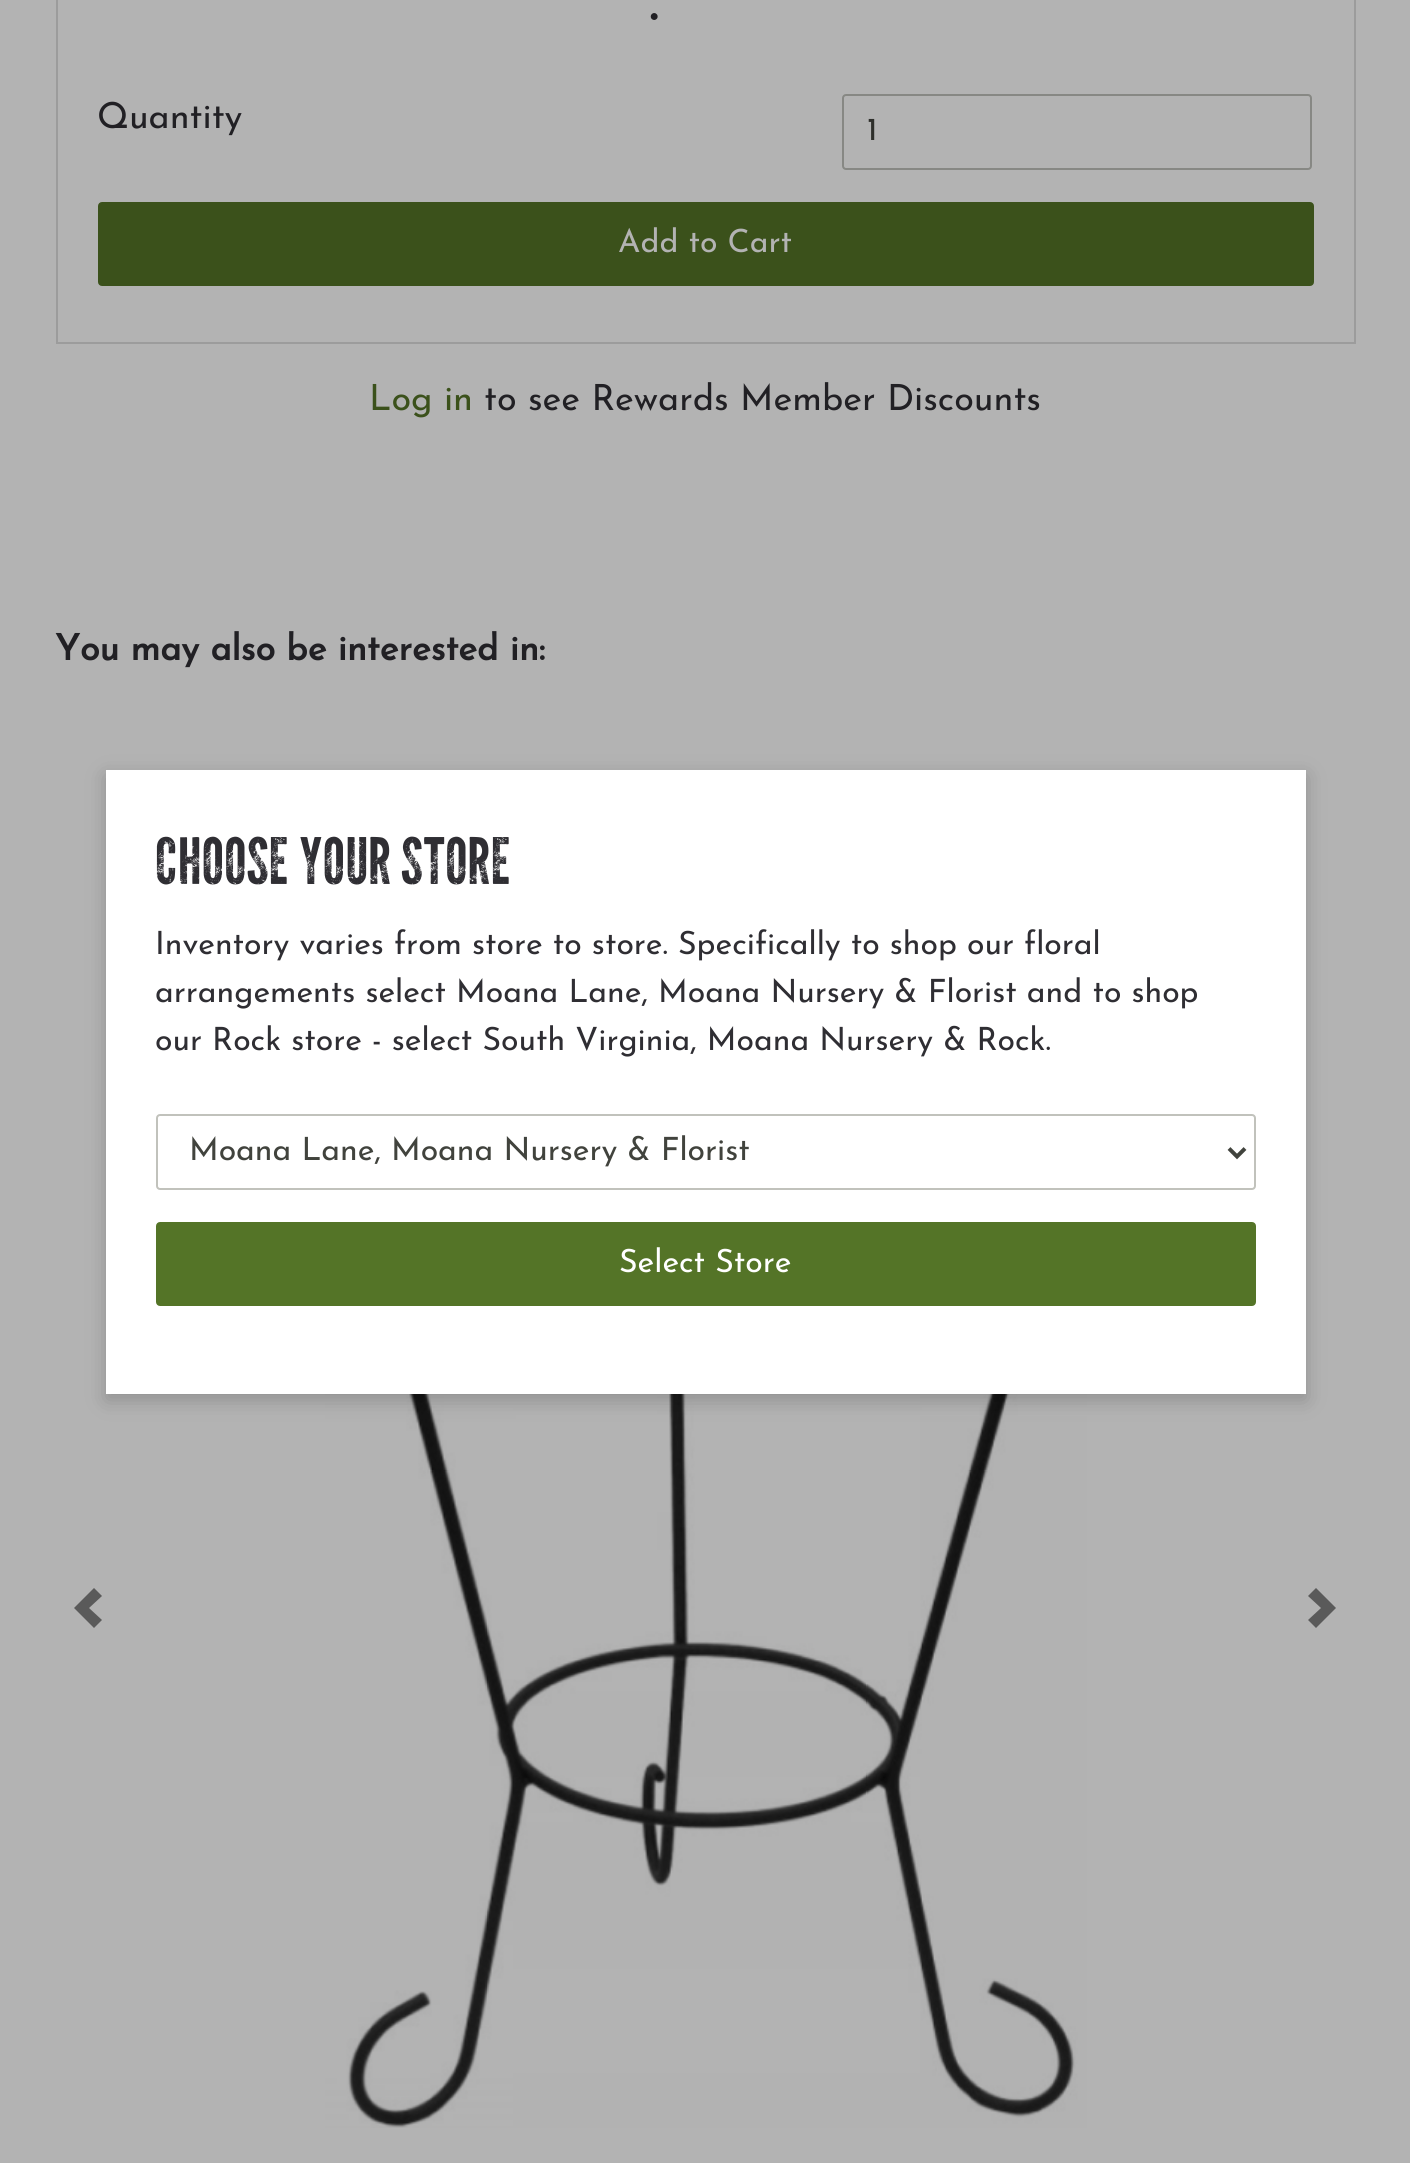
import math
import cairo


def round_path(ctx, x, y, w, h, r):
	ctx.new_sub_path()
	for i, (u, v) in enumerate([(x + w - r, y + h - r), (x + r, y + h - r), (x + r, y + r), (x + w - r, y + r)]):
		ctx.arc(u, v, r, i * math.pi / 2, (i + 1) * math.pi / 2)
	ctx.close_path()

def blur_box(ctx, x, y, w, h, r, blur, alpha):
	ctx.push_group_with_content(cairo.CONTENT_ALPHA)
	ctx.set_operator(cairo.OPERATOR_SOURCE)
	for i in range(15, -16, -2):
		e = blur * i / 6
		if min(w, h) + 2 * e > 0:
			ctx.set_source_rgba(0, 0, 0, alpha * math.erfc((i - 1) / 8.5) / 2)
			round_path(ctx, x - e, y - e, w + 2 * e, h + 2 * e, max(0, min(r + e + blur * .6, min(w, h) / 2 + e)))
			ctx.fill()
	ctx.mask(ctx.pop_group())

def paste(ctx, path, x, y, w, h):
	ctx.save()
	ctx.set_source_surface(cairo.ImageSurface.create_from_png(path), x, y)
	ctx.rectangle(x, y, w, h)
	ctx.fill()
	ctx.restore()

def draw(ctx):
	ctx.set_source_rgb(0.702, 0.702, 0.702)
	ctx.paint()
	ctx.rectangle(57, -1, 1298, 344)
	ctx.set_source_rgb(0.612, 0.612, 0.612)
	ctx.stroke()
	ctx.select_font_face('Josefin Sans', cairo.FONT_SLANT_NORMAL, cairo.FONT_WEIGHT_BOLD)
	ctx.set_font_size(52)
	ctx.set_source_rgb(0.129, 0.125, 0.141)
	ctx.move_to(649, 20)
	ctx.show_text('.')
	ctx.select_font_face('Josefin Sans Thin')
	ctx.set_font_size(36)
	ctx.move_to(97, 128)
	ctx.show_text('Quantity')
	round_path(ctx, 843, 95, 468, 74, 3)
	ctx.set_source_rgb(0.529, 0.533, 0.518)
	ctx.stroke()
	ctx.set_font_size(32)
	ctx.set_source_rgb(0.18, 0.184, 0.169)
	ctx.move_to(867, 140)
	ctx.show_text('1')
	ctx.set_source_rgb(0.231, 0.318, 0.106)
	round_path(ctx, 99, 203, 1214, 82, 3)
	ctx.fill_preserve()
	ctx.stroke()
	ctx.set_source_rgb(0.702, 0.702, 0.702)
	ctx.move_to(618, 252)
	ctx.show_text('Add to Cart')
	ctx.set_font_size(36)
	ctx.set_source_rgb(0.231, 0.318, 0.106)
	ctx.move_to(369, 410)
	ctx.show_text('Log in')
	ctx.set_source_rgb(0.129, 0.125, 0.141)
	ctx.move_to(484, 410)
	ctx.show_text('to see Rewards Member Discounts')
	ctx.select_font_face('Josefin Sans', cairo.FONT_SLANT_NORMAL, cairo.FONT_WEIGHT_BOLD)
	ctx.move_to(55, 660)
	ctx.show_text('You may also be interested in:')
	ctx.set_source_rgb(0.353, 0.353, 0.353)
	ctx.new_path()
	ctx.move_to(94, 1588)
	ctx.line_to(74, 1608)
	ctx.line_to(94, 1628)
	ctx.line_to(102, 1620)
	ctx.line_to(89, 1608)
	ctx.line_to(102, 1596)
	ctx.close_path()
	ctx.fill()
	paste(ctx, 'media/1.png', 325, 1394, 762, 734)
	ctx.new_path()
	ctx.move_to(1316, 1588)
	ctx.line_to(1308, 1596)
	ctx.line_to(1321, 1608)
	ctx.line_to(1308, 1620)
	ctx.line_to(1316, 1628)
	ctx.line_to(1336, 1608)
	ctx.close_path()
	ctx.fill()
	ctx.set_source_rgb(0, 0, 0)
	blur_box(ctx, 106, 776, 1200, 624, 0, 10, 0.2)
	ctx.set_source_rgb(1, 1, 1)
	ctx.rectangle(106, 770, 1200, 624)
	ctx.fill()
	ctx.select_font_face('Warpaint')
	ctx.set_font_size(64)
	ctx.set_source_rgb(0.184, 0.18, 0.2)
	for x, y, s in [
		(155, 884, 'CHOOSE'),
		(299, 884, 'YOUR'),
		(401, 884, 'STORE'),
	]:
		ctx.move_to(x, y)
		ctx.show_text(s)
	ctx.select_font_face('Josefin Sans Thin')
	ctx.set_font_size(32)
	for x, y, s in [
		(155, 954, 'Inventory varies from store to store. Specifically to shop our floral'),
		(155, 1002, 'arrangements select Moana Lane, Moana Nursery & Florist and to shop'),
		(155, 1050, 'our Rock store - select South Virginia, Moana Nursery & Rock.'),
	]:
		ctx.move_to(x, y)
		ctx.show_text(s)
	round_path(ctx, 157, 1115, 1098, 74, 3)
	ctx.set_source_rgb(0.757, 0.761, 0.737)
	ctx.stroke()
	ctx.new_path()
	ctx.move_to(1229, 1148.5)
	ctx.line_to(1237, 1156.5)
	ctx.line_to(1245, 1148.5)
	ctx.set_source_rgb(0.255, 0.263, 0.239)
	ctx.set_line_width(4)
	ctx.stroke()
	ctx.move_to(189, 1160)
	ctx.show_text('Moana Lane, Moana Nursery & Florist')
	ctx.set_source_rgb(0.329, 0.455, 0.153)
	round_path(ctx, 157, 1223, 1098, 82, 3)
	ctx.fill_preserve()
	ctx.set_line_width(2)
	ctx.stroke()
	ctx.set_source_rgb(1, 1, 1)
	ctx.move_to(619, 1272)
	ctx.show_text('Select Store')


surface = cairo.ImageSurface(cairo.FORMAT_RGB24, 1410, 2163)
ctx = cairo.Context(surface)
options = cairo.FontOptions()
options.set_hint_metrics(cairo.HINT_METRICS_OFF)
options.set_hint_style(cairo.HINT_STYLE_NONE)
ctx.set_font_options(options)
ctx.set_miter_limit(4)
draw(ctx)
surface.write_to_png('image.png')
